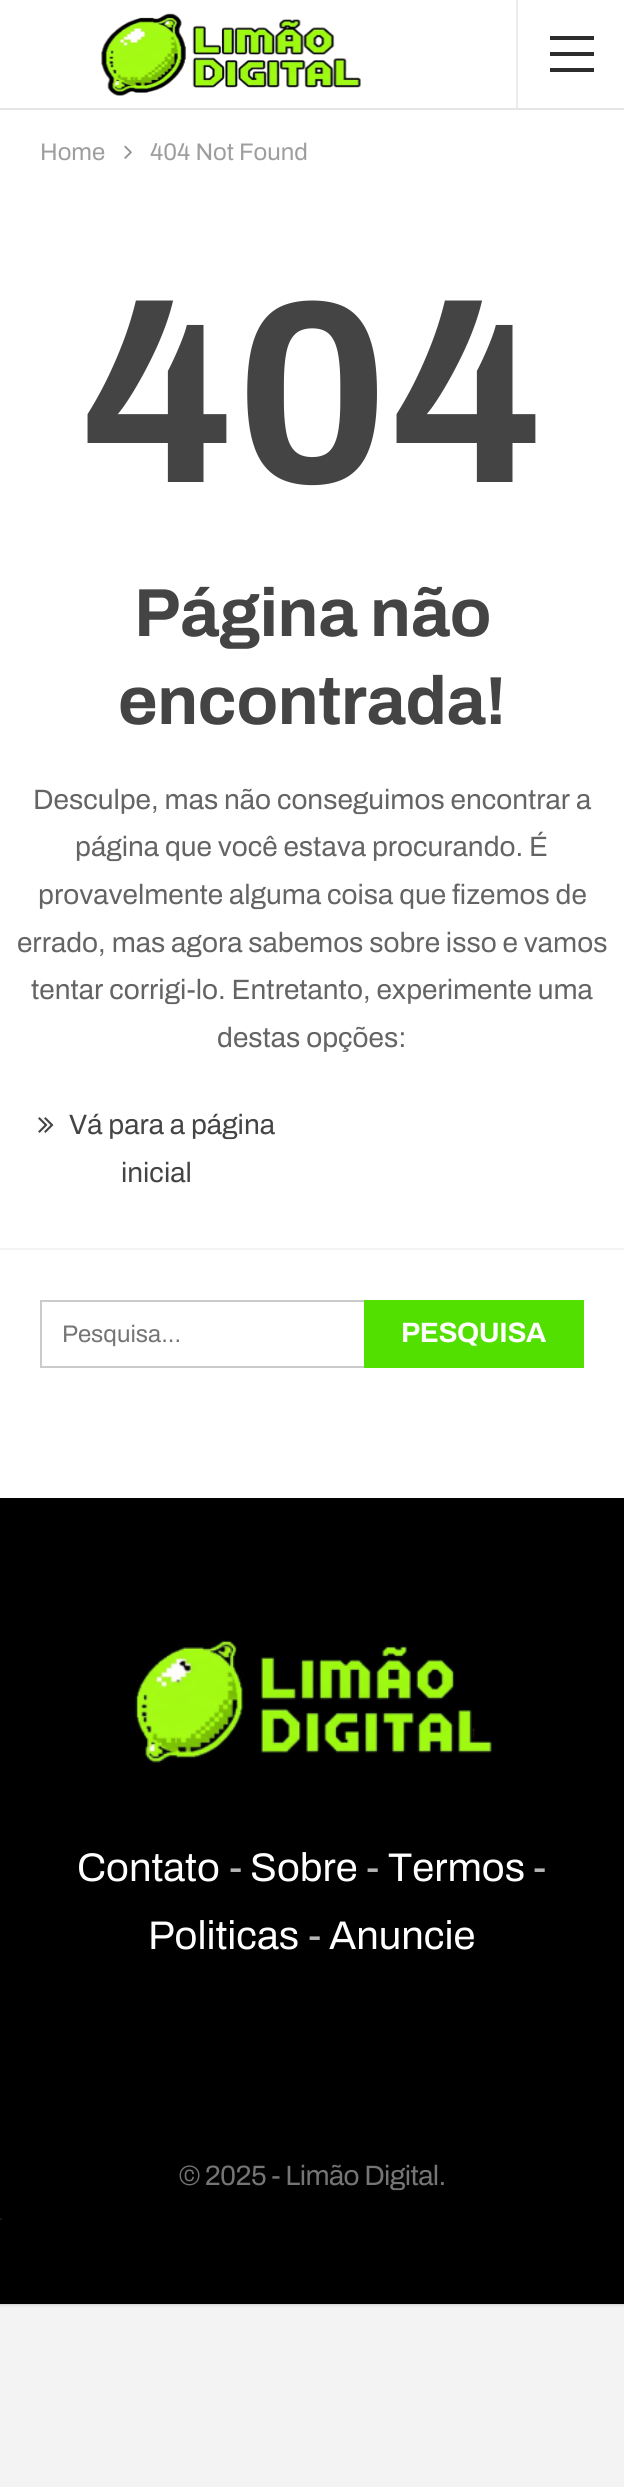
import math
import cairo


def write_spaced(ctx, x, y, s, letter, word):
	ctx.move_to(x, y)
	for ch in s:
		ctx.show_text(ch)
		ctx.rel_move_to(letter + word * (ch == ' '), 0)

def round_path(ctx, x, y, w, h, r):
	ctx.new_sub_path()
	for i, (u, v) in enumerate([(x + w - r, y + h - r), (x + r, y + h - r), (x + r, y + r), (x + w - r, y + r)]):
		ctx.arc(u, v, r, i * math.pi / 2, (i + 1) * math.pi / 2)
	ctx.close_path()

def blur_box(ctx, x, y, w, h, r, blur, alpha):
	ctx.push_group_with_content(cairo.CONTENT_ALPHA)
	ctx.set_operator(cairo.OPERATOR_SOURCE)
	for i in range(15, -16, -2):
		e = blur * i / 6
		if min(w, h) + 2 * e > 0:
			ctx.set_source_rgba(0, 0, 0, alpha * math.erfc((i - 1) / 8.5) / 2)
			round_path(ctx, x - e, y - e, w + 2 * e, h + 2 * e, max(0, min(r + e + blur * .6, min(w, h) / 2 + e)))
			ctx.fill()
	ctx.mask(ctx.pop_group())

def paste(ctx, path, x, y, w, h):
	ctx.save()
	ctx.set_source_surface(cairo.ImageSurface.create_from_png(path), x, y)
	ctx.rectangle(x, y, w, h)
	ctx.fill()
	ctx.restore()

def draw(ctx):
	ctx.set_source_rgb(0.953, 0.953, 0.953)
	ctx.paint()
	ctx.set_source_rgb(0, 0, 0)
	blur_box(ctx, 0, 110, 624, 2194, 0, 2, 0.27)
	ctx.set_source_rgb(1, 1, 1)
	ctx.rectangle(0, 0, 624, 108)
	ctx.fill()
	ctx.set_source_rgb(0.898, 0.898, 0.898)
	ctx.rectangle(0, 108, 624, 2)
	ctx.fill()
	paste(ctx, 'media/1.png', 101, 13, 260, 83)
	ctx.set_source_rgb(0.929, 0.929, 0.929)
	ctx.rectangle(516, 0, 2, 108)
	ctx.fill()
	ctx.set_source_rgb(0.173, 0.173, 0.173)
	ctx.rectangle(550, 52, 44, 4)
	ctx.rectangle(550, 36, 44, 4)
	ctx.rectangle(550, 68, 44, 4)
	ctx.fill()
	ctx.set_source_rgb(1, 1, 1)
	ctx.rectangle(0, 110, 624, 1388)
	ctx.fill()
	ctx.select_font_face('Archivo')
	ctx.set_font_size(24)
	ctx.set_source_rgb(0.62, 0.62, 0.62)
	ctx.move_to(40, 160)
	ctx.show_text('Home')
	paste(ctx, 'media/2.png', 124, 145, 8, 14)
	ctx.move_to(150, 160)
	ctx.show_text('404 Not Found')
	ctx.select_font_face('Archivo', cairo.FONT_SLANT_NORMAL, cairo.FONT_WEIGHT_BOLD)
	ctx.set_font_size(260)
	ctx.set_source_rgb(0.267, 0.267, 0.267)
	write_spaced(ctx, 80, 482, '404', -0.4, 0)
	ctx.set_font_size(68)
	write_spaced(ctx, 134, 636, 'Página não', -0.4, 0)
	write_spaced(ctx, 118, 724, 'encontrada!', -0.4, 0)
	ctx.select_font_face('Archivo')
	ctx.set_font_size(28)
	ctx.set_source_rgb(0.392, 0.392, 0.392)
	for x, y, s in [
		(33, 809, 'Desculpe, mas não conseguimos encontrar a'),
		(75, 856, 'página que você estava procurando. É'),
		(38, 904, 'provavelmente alguma coisa que fizemos de'),
		(17, 952, 'errado, mas agora sabemos sobre isso e vamos'),
		(31, 999, 'tentar corrigi-lo. Entretanto, experimente uma'),
		(217, 1047, 'destas opções:'),
	]:
		ctx.move_to(x, y)
		ctx.show_text(s)
	paste(ctx, 'media/3.png', 38, 1117, 16, 16)
	ctx.set_source_rgb(0.267, 0.267, 0.267)
	ctx.move_to(69, 1134)
	ctx.show_text('Vá para a página')
	ctx.move_to(121, 1182)
	ctx.show_text('inicial')
	ctx.set_source_rgb(0.957, 0.957, 0.957)
	ctx.rectangle(0, 1248, 624, 2)
	ctx.fill()
	ctx.rectangle(41, 1301, 542, 66)
	ctx.set_source_rgb(0.796, 0.796, 0.796)
	ctx.stroke()
	ctx.set_font_size(24)
	ctx.set_source_rgb(0.459, 0.459, 0.459)
	ctx.move_to(62, 1342)
	ctx.show_text('Pesquisa...')
	ctx.set_source_rgb(0.322, 0.878, 0)
	ctx.rectangle(364, 1300, 220, 68)
	ctx.fill()
	ctx.select_font_face('Archivo', cairo.FONT_SLANT_NORMAL, cairo.FONT_WEIGHT_BOLD)
	ctx.set_font_size(28)
	ctx.set_source_rgb(1, 1, 1)
	write_spaced(ctx, 401, 1342, 'PESQUISA', -0.4, 0)
	ctx.set_source_rgb(0, 0, 0)
	ctx.rectangle(0, 1498, 624, 806)
	ctx.fill()
	paste(ctx, 'media/4.png', 135, 1635, 357, 130)
	ctx.select_font_face('Archivo')
	ctx.set_font_size(40)
	ctx.set_source_rgb(1, 1, 1)
	ctx.move_to(77, 1881)
	ctx.show_text('Contato')
	ctx.set_source_rgb(0.71, 0.71, 0.71)
	ctx.move_to(229, 1881)
	ctx.show_text('-')
	ctx.set_source_rgb(1, 1, 1)
	ctx.move_to(250, 1881)
	ctx.show_text('Sobre')
	ctx.set_source_rgb(0.71, 0.71, 0.71)
	ctx.move_to(366, 1881)
	ctx.show_text('-')
	ctx.set_source_rgb(1, 1, 1)
	ctx.move_to(388, 1881)
	ctx.show_text('Termos')
	ctx.set_source_rgb(0.71, 0.71, 0.71)
	ctx.move_to(533, 1881)
	ctx.show_text('-')
	ctx.set_source_rgb(1, 1, 1)
	ctx.move_to(148, 1949)
	ctx.show_text('Politicas')
	ctx.set_source_rgb(0.71, 0.71, 0.71)
	ctx.move_to(308, 1949)
	ctx.show_text('-')
	ctx.set_source_rgb(1, 1, 1)
	ctx.move_to(329, 1949)
	ctx.show_text('Anuncie')
	ctx.set_font_size(28)
	ctx.set_source_rgb(0.459, 0.459, 0.459)
	write_spaced(ctx, 179, 2185, '© 2025 - Limão Digital.', -0.6, 0)
	ctx.set_source_rgb(0.094, 0.094, 0.094)
	ctx.rectangle(0, 2218, 2, 2)
	ctx.fill()


surface = cairo.ImageSurface(cairo.FORMAT_RGB24, 624, 2487)
ctx = cairo.Context(surface)
options = cairo.FontOptions()
options.set_hint_metrics(cairo.HINT_METRICS_OFF)
options.set_hint_style(cairo.HINT_STYLE_NONE)
ctx.set_font_options(options)
ctx.set_miter_limit(4)
draw(ctx)
surface.write_to_png('image.png')
